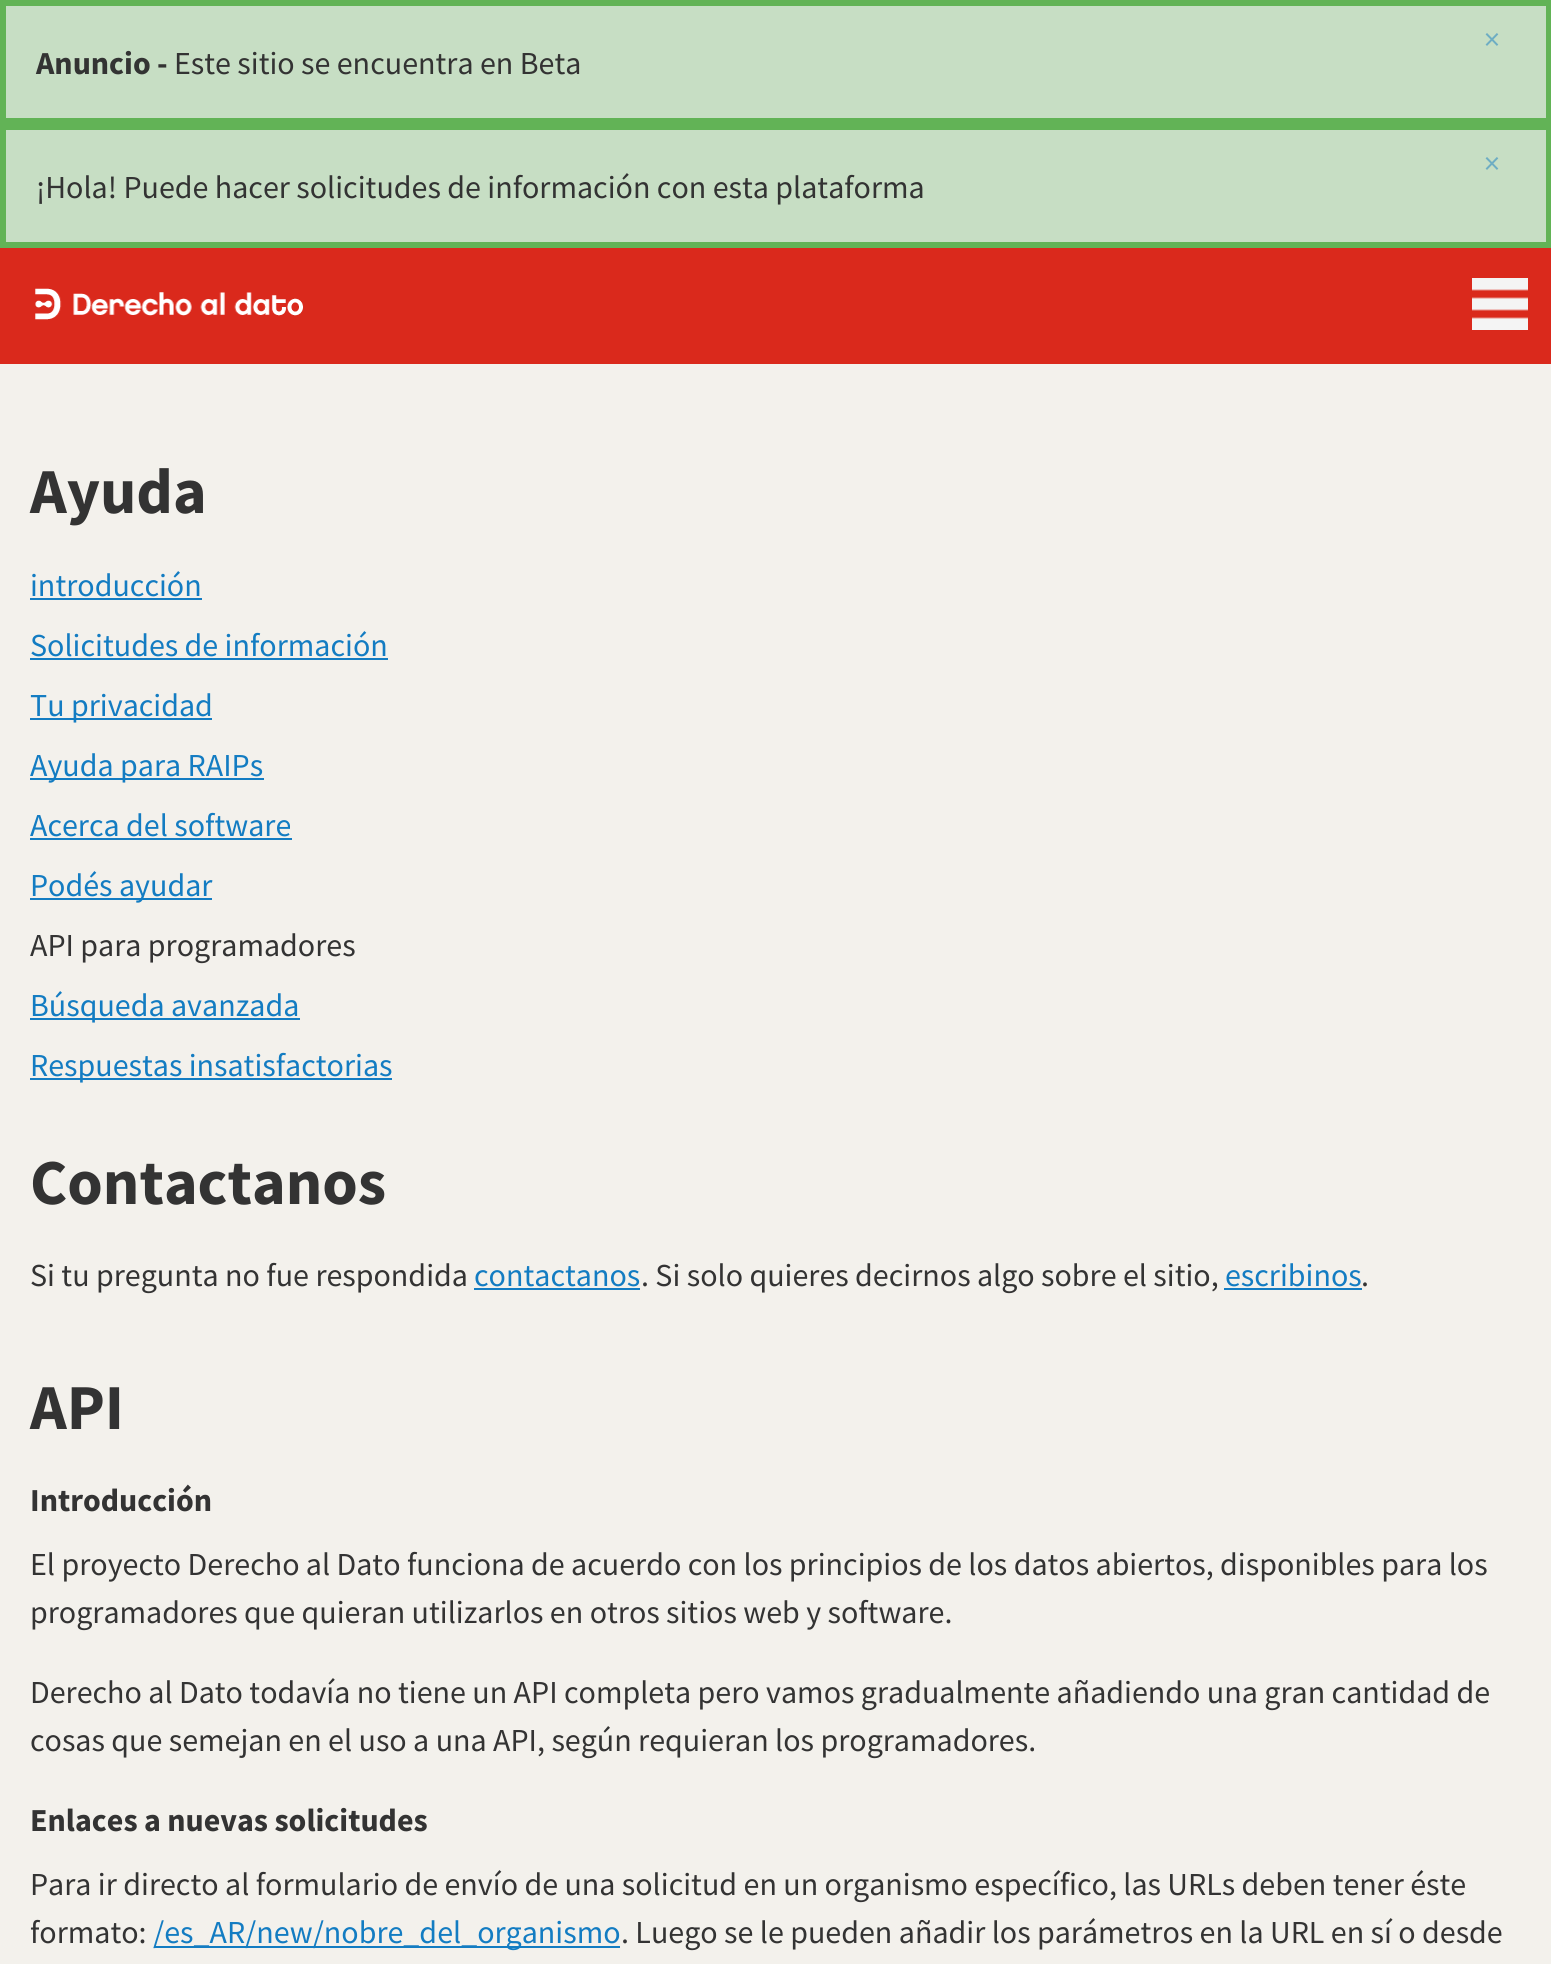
import math
import cairo


def paste(ctx, path, x, y, w, h):
	ctx.save()
	ctx.set_source_surface(cairo.ImageSurface.create_from_png(path), x, y)
	ctx.rectangle(x, y, w, h)
	ctx.fill()
	ctx.restore()

def draw(ctx):
	ctx.set_source_rgb(0.953, 0.945, 0.922)
	ctx.paint()
	ctx.set_source_rgb(0.78, 0.871, 0.769)
	ctx.rectangle(3, 3, 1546, 118)
	ctx.fill_preserve()
	ctx.set_source_rgb(0.384, 0.702, 0.337)
	ctx.set_line_width(6)
	ctx.stroke()
	ctx.select_font_face('Source Sans Pro')
	ctx.set_font_size(32)
	ctx.set_source_rgb(0.431, 0.678, 0.765)
	ctx.move_to(1484, 50)
	ctx.show_text('×')
	ctx.select_font_face('Source Sans Pro', cairo.FONT_SLANT_NORMAL, cairo.FONT_WEIGHT_BOLD)
	ctx.set_source_rgb(0.2, 0.2, 0.2)
	ctx.move_to(36, 74)
	ctx.show_text('Anuncio -')
	ctx.select_font_face('Source Sans Pro')
	ctx.move_to(174, 74)
	ctx.show_text('Este sitio se encuentra en Beta')
	ctx.set_source_rgb(0.78, 0.871, 0.769)
	ctx.rectangle(3, 127, 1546, 118)
	ctx.fill_preserve()
	ctx.set_source_rgb(0.384, 0.702, 0.337)
	ctx.stroke()
	ctx.set_source_rgb(0.431, 0.678, 0.765)
	ctx.move_to(1484, 174)
	ctx.show_text('×')
	ctx.set_source_rgb(0.2, 0.2, 0.2)
	ctx.move_to(36, 198)
	ctx.show_text('¡Hola! Puede hacer solicitudes de información con esta plataforma')
	ctx.set_source_rgb(0.855, 0.161, 0.11)
	ctx.rectangle(0, 248, 1551, 116)
	ctx.fill()
	paste(ctx, 'media/1.png', 35, 288, 268, 32)
	paste(ctx, 'media/2.png', 1472, 278, 56, 52)
	ctx.select_font_face('Source Sans Pro', cairo.FONT_SLANT_NORMAL, cairo.FONT_WEIGHT_BOLD)
	ctx.set_font_size(64)
	ctx.set_source_rgb(0.2, 0.2, 0.2)
	ctx.move_to(30, 513)
	ctx.show_text('Ayuda')
	ctx.select_font_face('Source Sans Pro')
	ctx.set_font_size(32)
	ctx.set_source_rgb(0.078, 0.486, 0.761)
	ctx.move_to(30, 596)
	ctx.show_text('introducción')
	ctx.rectangle(30, 598, 172, 2)
	ctx.fill()
	ctx.move_to(30, 656)
	ctx.show_text('Solicitudes de información')
	ctx.rectangle(30, 658, 358, 2)
	ctx.fill()
	ctx.rectangle(30, 718, 182, 2)
	ctx.fill()
	ctx.move_to(30, 716)
	ctx.show_text('Tu privacidad')
	ctx.rectangle(30, 778, 234, 2)
	ctx.fill()
	ctx.move_to(30, 776)
	ctx.show_text('Ayuda para RAIPs')
	ctx.move_to(30, 836)
	ctx.show_text('Acerca del software')
	ctx.rectangle(30, 838, 262, 2)
	ctx.fill()
	ctx.rectangle(30, 898, 182, 2)
	ctx.fill()
	ctx.move_to(30, 896)
	ctx.show_text('Podés ayudar')
	ctx.set_source_rgb(0.2, 0.2, 0.2)
	ctx.move_to(30, 956)
	ctx.show_text('API para programadores')
	ctx.set_source_rgb(0.078, 0.486, 0.761)
	ctx.rectangle(30, 1018, 270, 2)
	ctx.fill()
	ctx.move_to(30, 1016)
	ctx.show_text('Búsqueda avanzada')
	ctx.rectangle(30, 1078, 362, 2)
	ctx.fill()
	ctx.move_to(30, 1076)
	ctx.show_text('Respuestas insatisfactorias')
	ctx.select_font_face('Source Sans Pro', cairo.FONT_SLANT_NORMAL, cairo.FONT_WEIGHT_BOLD)
	ctx.set_font_size(64)
	ctx.set_source_rgb(0.2, 0.2, 0.2)
	ctx.move_to(30, 1204)
	ctx.show_text('Contactanos')
	ctx.select_font_face('Source Sans Pro')
	ctx.set_font_size(32)
	ctx.move_to(30, 1286)
	ctx.show_text('Si tu pregunta no fue respondida')
	ctx.set_source_rgb(0.078, 0.486, 0.761)
	ctx.move_to(474, 1286)
	ctx.show_text('contactanos')
	ctx.rectangle(474, 1288, 166, 2)
	ctx.fill()
	ctx.set_source_rgb(0.2, 0.2, 0.2)
	ctx.move_to(641, 1286)
	ctx.show_text('. Si solo quieres decirnos algo sobre el sitio,')
	ctx.set_source_rgb(0.078, 0.486, 0.761)
	ctx.move_to(1225, 1286)
	ctx.show_text('escribinos')
	ctx.rectangle(1224, 1288, 138, 2)
	ctx.fill()
	ctx.set_source_rgb(0.2, 0.2, 0.2)
	ctx.move_to(1361, 1286)
	ctx.show_text('.')
	ctx.select_font_face('Source Sans Pro', cairo.FONT_SLANT_NORMAL, cairo.FONT_WEIGHT_BOLD)
	ctx.set_font_size(64)
	ctx.move_to(30, 1429)
	ctx.show_text('API')
	ctx.set_font_size(32)
	ctx.move_to(30, 1511)
	ctx.show_text('Introducción')
	ctx.select_font_face('Source Sans Pro')
	for x, y, s in [
		(30, 1575, 'El proyecto Derecho al Dato funciona de acuerdo con los principios de los datos abiertos, disponibles para los'),
		(30, 1623, 'programadores que quieran utilizarlos en otros sitios web y software.'),
		(30, 1703, 'Derecho al Dato todavía no tiene un API completa pero vamos gradualmente añadiendo una gran cantidad de'),
		(30, 1751, 'cosas que semejan en el uso a una API, según requieran los programadores.'),
	]:
		ctx.move_to(x, y)
		ctx.show_text(s)
	ctx.select_font_face('Source Sans Pro', cairo.FONT_SLANT_NORMAL, cairo.FONT_WEIGHT_BOLD)
	ctx.move_to(30, 1831)
	ctx.show_text('Enlaces a nuevas solicitudes')
	ctx.select_font_face('Source Sans Pro')
	ctx.move_to(30, 1895)
	ctx.show_text('Para ir directo al formulario de envío de una solicitud en un organismo específico, las URLs deben tener éste')
	ctx.move_to(30, 1943)
	ctx.show_text('formato:')
	ctx.set_source_rgb(0.078, 0.486, 0.761)
	ctx.rectangle(154, 1946, 466, 2)
	ctx.fill()
	ctx.move_to(153, 1943)
	ctx.show_text('/es_AR/new/nobre_del_organismo')
	ctx.set_source_rgb(0.2, 0.2, 0.2)
	ctx.move_to(621, 1943)
	ctx.show_text('. Luego se le pueden añadir los parámetros en la URL en sí o desde')


surface = cairo.ImageSurface(cairo.FORMAT_RGB24, 1551, 1964)
ctx = cairo.Context(surface)
options = cairo.FontOptions()
options.set_hint_metrics(cairo.HINT_METRICS_OFF)
options.set_hint_style(cairo.HINT_STYLE_NONE)
ctx.set_font_options(options)
ctx.set_miter_limit(4)
draw(ctx)
surface.write_to_png('image.png')
